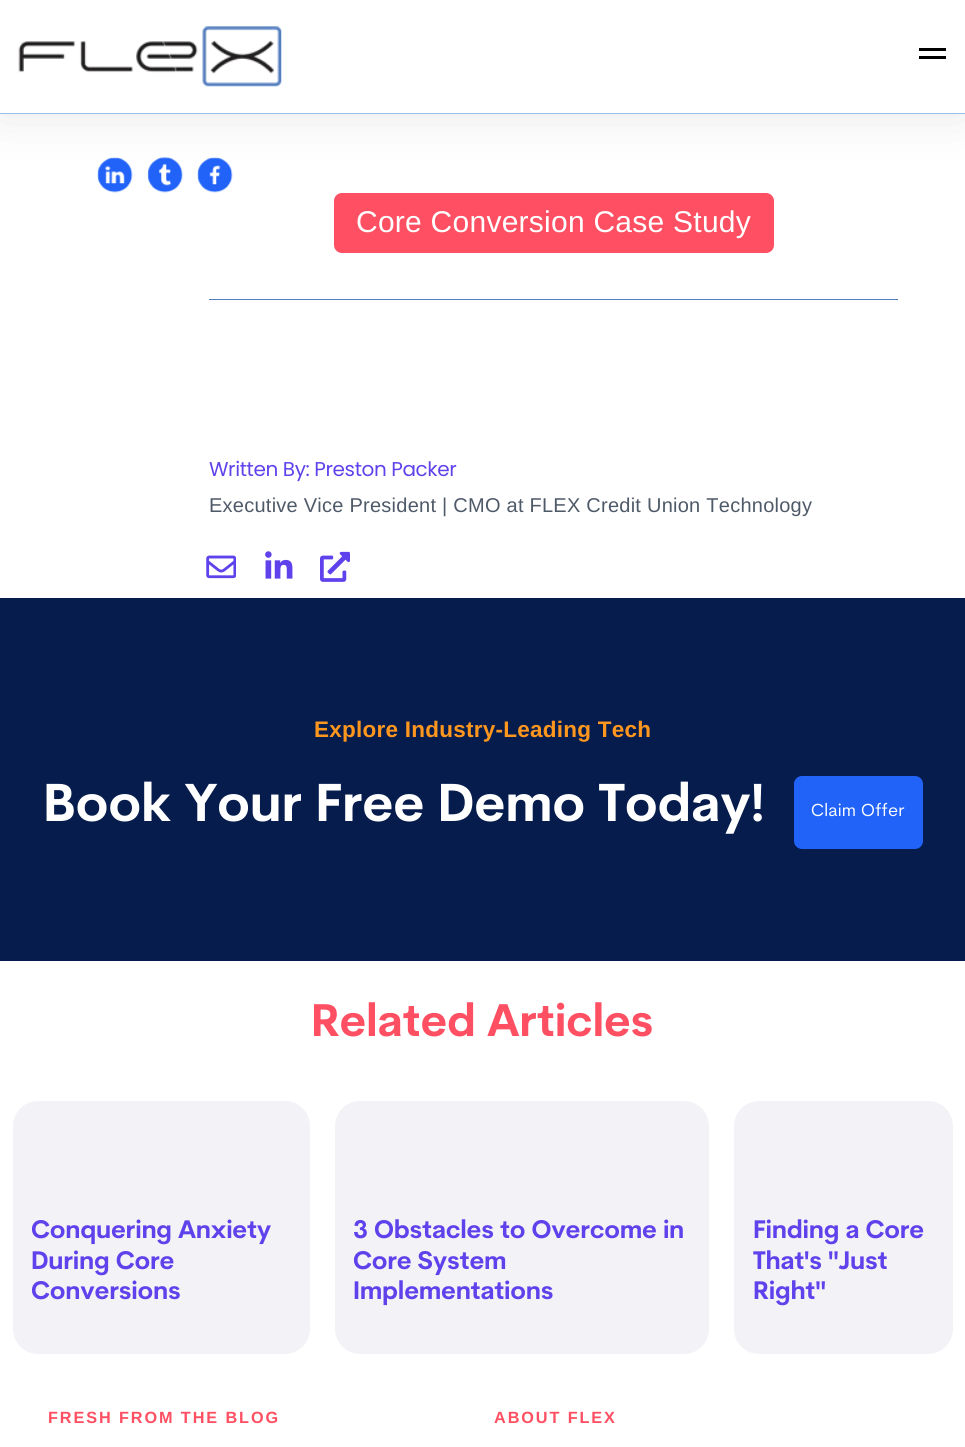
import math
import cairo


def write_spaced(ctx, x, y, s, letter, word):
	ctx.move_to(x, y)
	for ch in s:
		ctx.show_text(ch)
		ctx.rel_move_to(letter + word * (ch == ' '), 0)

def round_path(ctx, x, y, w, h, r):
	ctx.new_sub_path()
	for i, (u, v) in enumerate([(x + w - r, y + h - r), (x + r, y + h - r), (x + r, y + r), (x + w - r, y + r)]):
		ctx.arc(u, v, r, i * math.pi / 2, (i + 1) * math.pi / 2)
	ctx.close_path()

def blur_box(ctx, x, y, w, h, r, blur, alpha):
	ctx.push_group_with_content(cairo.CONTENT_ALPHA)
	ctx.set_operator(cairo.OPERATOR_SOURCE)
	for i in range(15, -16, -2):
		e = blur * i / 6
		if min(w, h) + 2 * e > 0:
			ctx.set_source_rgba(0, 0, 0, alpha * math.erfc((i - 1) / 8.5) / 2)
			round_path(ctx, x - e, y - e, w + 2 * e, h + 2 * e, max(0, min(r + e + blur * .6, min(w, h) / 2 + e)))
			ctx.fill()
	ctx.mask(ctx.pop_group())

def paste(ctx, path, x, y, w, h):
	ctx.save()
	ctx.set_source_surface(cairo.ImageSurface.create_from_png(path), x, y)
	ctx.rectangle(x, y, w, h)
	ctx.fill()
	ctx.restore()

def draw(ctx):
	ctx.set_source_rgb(1, 1, 1)
	ctx.paint()
	paste(ctx, 'media/2.png', 97, 157, 36, 36)
	paste(ctx, 'media/3.png', 147, 157, 36, 36)
	paste(ctx, 'media/4.png', 197, 157, 36, 36)
	ctx.set_source_rgb(0, 0, 0)
	blur_box(ctx, 0, 0, 965, 114, 0, 25, 0.1)
	ctx.set_source_rgb(1, 1, 1)
	ctx.rectangle(0, 0, 965, 113)
	ctx.fill()
	ctx.set_source_rgb(0.592, 0.745, 0.902)
	ctx.rectangle(0, 113, 965, 1)
	ctx.fill()
	paste(ctx, 'media/1.png', 18, 26, 264, 61)
	ctx.set_source_rgb(0, 0, 0)
	ctx.rectangle(919, 48, 27, 3)
	ctx.fill()
	ctx.rectangle(919, 56, 27, 3)
	ctx.fill()
	ctx.set_source_rgb(1, 0.31, 0.384)
	round_path(ctx, 334, 193, 440, 60, 8)
	ctx.fill()
	ctx.select_font_face('Liberation Sans')
	ctx.set_font_size(30)
	ctx.set_source_rgb(1, 1, 1)
	write_spaced(ctx, 356, 232, 'Core Conversion Case Study', 0.25, 0)
	ctx.set_source_rgb(0.325, 0.494, 0.749)
	ctx.rectangle(209, 299, 689, 1)
	ctx.fill()
	ctx.select_font_face('Poppins')
	ctx.set_font_size(20)
	ctx.set_source_rgb(0.376, 0.259, 0.925)
	write_spaced(ctx, 209, 476, 'Written By: Preston Packer', -0.4, 0)
	ctx.select_font_face('Liberation Sans')
	ctx.set_source_rgb(0.31, 0.353, 0.412)
	write_spaced(ctx, 209, 512, 'Executive Vice President | CMO at FLEX Credit Union Technology', 0.25, 0)
	paste(ctx, 'media/5.png', 206, 555, 30, 24)
	paste(ctx, 'media/6.png', 265, 551, 28, 28)
	paste(ctx, 'media/7.png', 320, 551, 30, 31)
	ctx.set_source_rgb(0.027, 0.11, 0.302)
	ctx.rectangle(0, 598, 965, 363)
	ctx.fill()
	ctx.select_font_face('Liberation Sans', cairo.FONT_SLANT_NORMAL, cairo.FONT_WEIGHT_BOLD)
	ctx.set_font_size(22.5)
	ctx.set_source_rgb(1, 0.592, 0.118)
	write_spaced(ctx, 314, 737, 'Explore Industry-Leading Tech', 0.25, 0)
	ctx.select_font_face('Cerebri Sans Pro', cairo.FONT_SLANT_NORMAL, cairo.FONT_WEIGHT_BOLD)
	ctx.set_font_size(52.5)
	ctx.set_source_rgb(1, 1, 1)
	write_spaced(ctx, 43, 821, 'Book Your Free Demo Today!', -0.25, 0)
	ctx.set_source_rgb(0.129, 0.388, 0.976)
	round_path(ctx, 794, 776, 129, 73, 8)
	ctx.fill()
	ctx.select_font_face('Cerebri Sans Pro')
	ctx.set_font_size(17.5)
	ctx.set_source_rgb(1, 1, 1)
	write_spaced(ctx, 811, 816, 'Claim Offer', 0.25, 0)
	ctx.select_font_face('Cerebri Sans Pro', cairo.FONT_SLANT_NORMAL, cairo.FONT_WEIGHT_BOLD)
	ctx.set_font_size(45)
	ctx.set_source_rgb(1, 0.31, 0.384)
	write_spaced(ctx, 311, 1036, 'Related Articles', -0.25, 0)
	ctx.set_source_rgb(0.953, 0.949, 0.961)
	round_path(ctx, 13, 1101, 297, 253, 25)
	ctx.fill()
	ctx.set_font_size(25)
	ctx.set_source_rgb(0.376, 0.259, 0.925)
	for x, y, s in [
		(31, 1238, 'Conquering Anxiety'),
		(31, 1269, 'During Core'),
		(31, 1299, 'Conversions'),
	]:
		write_spaced(ctx, x, y, s, -0.25, 0)
	ctx.set_source_rgb(0.953, 0.949, 0.961)
	round_path(ctx, 335, 1101, 374, 253, 25)
	ctx.fill()
	ctx.set_source_rgb(0.376, 0.259, 0.925)
	for x, y, s in [
		(353, 1238, '3 Obstacles to Overcome in'),
		(353, 1269, 'Core System'),
		(353, 1299, 'Implementations'),
	]:
		write_spaced(ctx, x, y, s, -0.25, 0)
	ctx.set_source_rgb(0.953, 0.949, 0.961)
	round_path(ctx, 734, 1101, 219, 253, 25)
	ctx.fill()
	ctx.set_source_rgb(0.376, 0.259, 0.925)
	for x, y, s in [
		(753, 1238, 'Finding a Core'),
		(753, 1269, 'That\'s "Just'),
		(753, 1299, 'Right"'),
	]:
		write_spaced(ctx, x, y, s, -0.25, 0)
	ctx.select_font_face('Liberation Sans', cairo.FONT_SLANT_NORMAL, cairo.FONT_WEIGHT_BOLD)
	ctx.set_font_size(16.25)
	ctx.set_source_rgb(1, 0.31, 0.384)
	write_spaced(ctx, 48, 1423, 'FRESH FROM THE BLOG', 1.9, 0)
	write_spaced(ctx, 494, 1423, 'ABOUT FLEX', 1.9, 0)


surface = cairo.ImageSurface(cairo.FORMAT_RGB24, 965, 1447)
ctx = cairo.Context(surface)
options = cairo.FontOptions()
options.set_hint_metrics(cairo.HINT_METRICS_OFF)
options.set_hint_style(cairo.HINT_STYLE_NONE)
ctx.set_font_options(options)
ctx.set_miter_limit(4)
draw(ctx)
surface.write_to_png('image.png')
